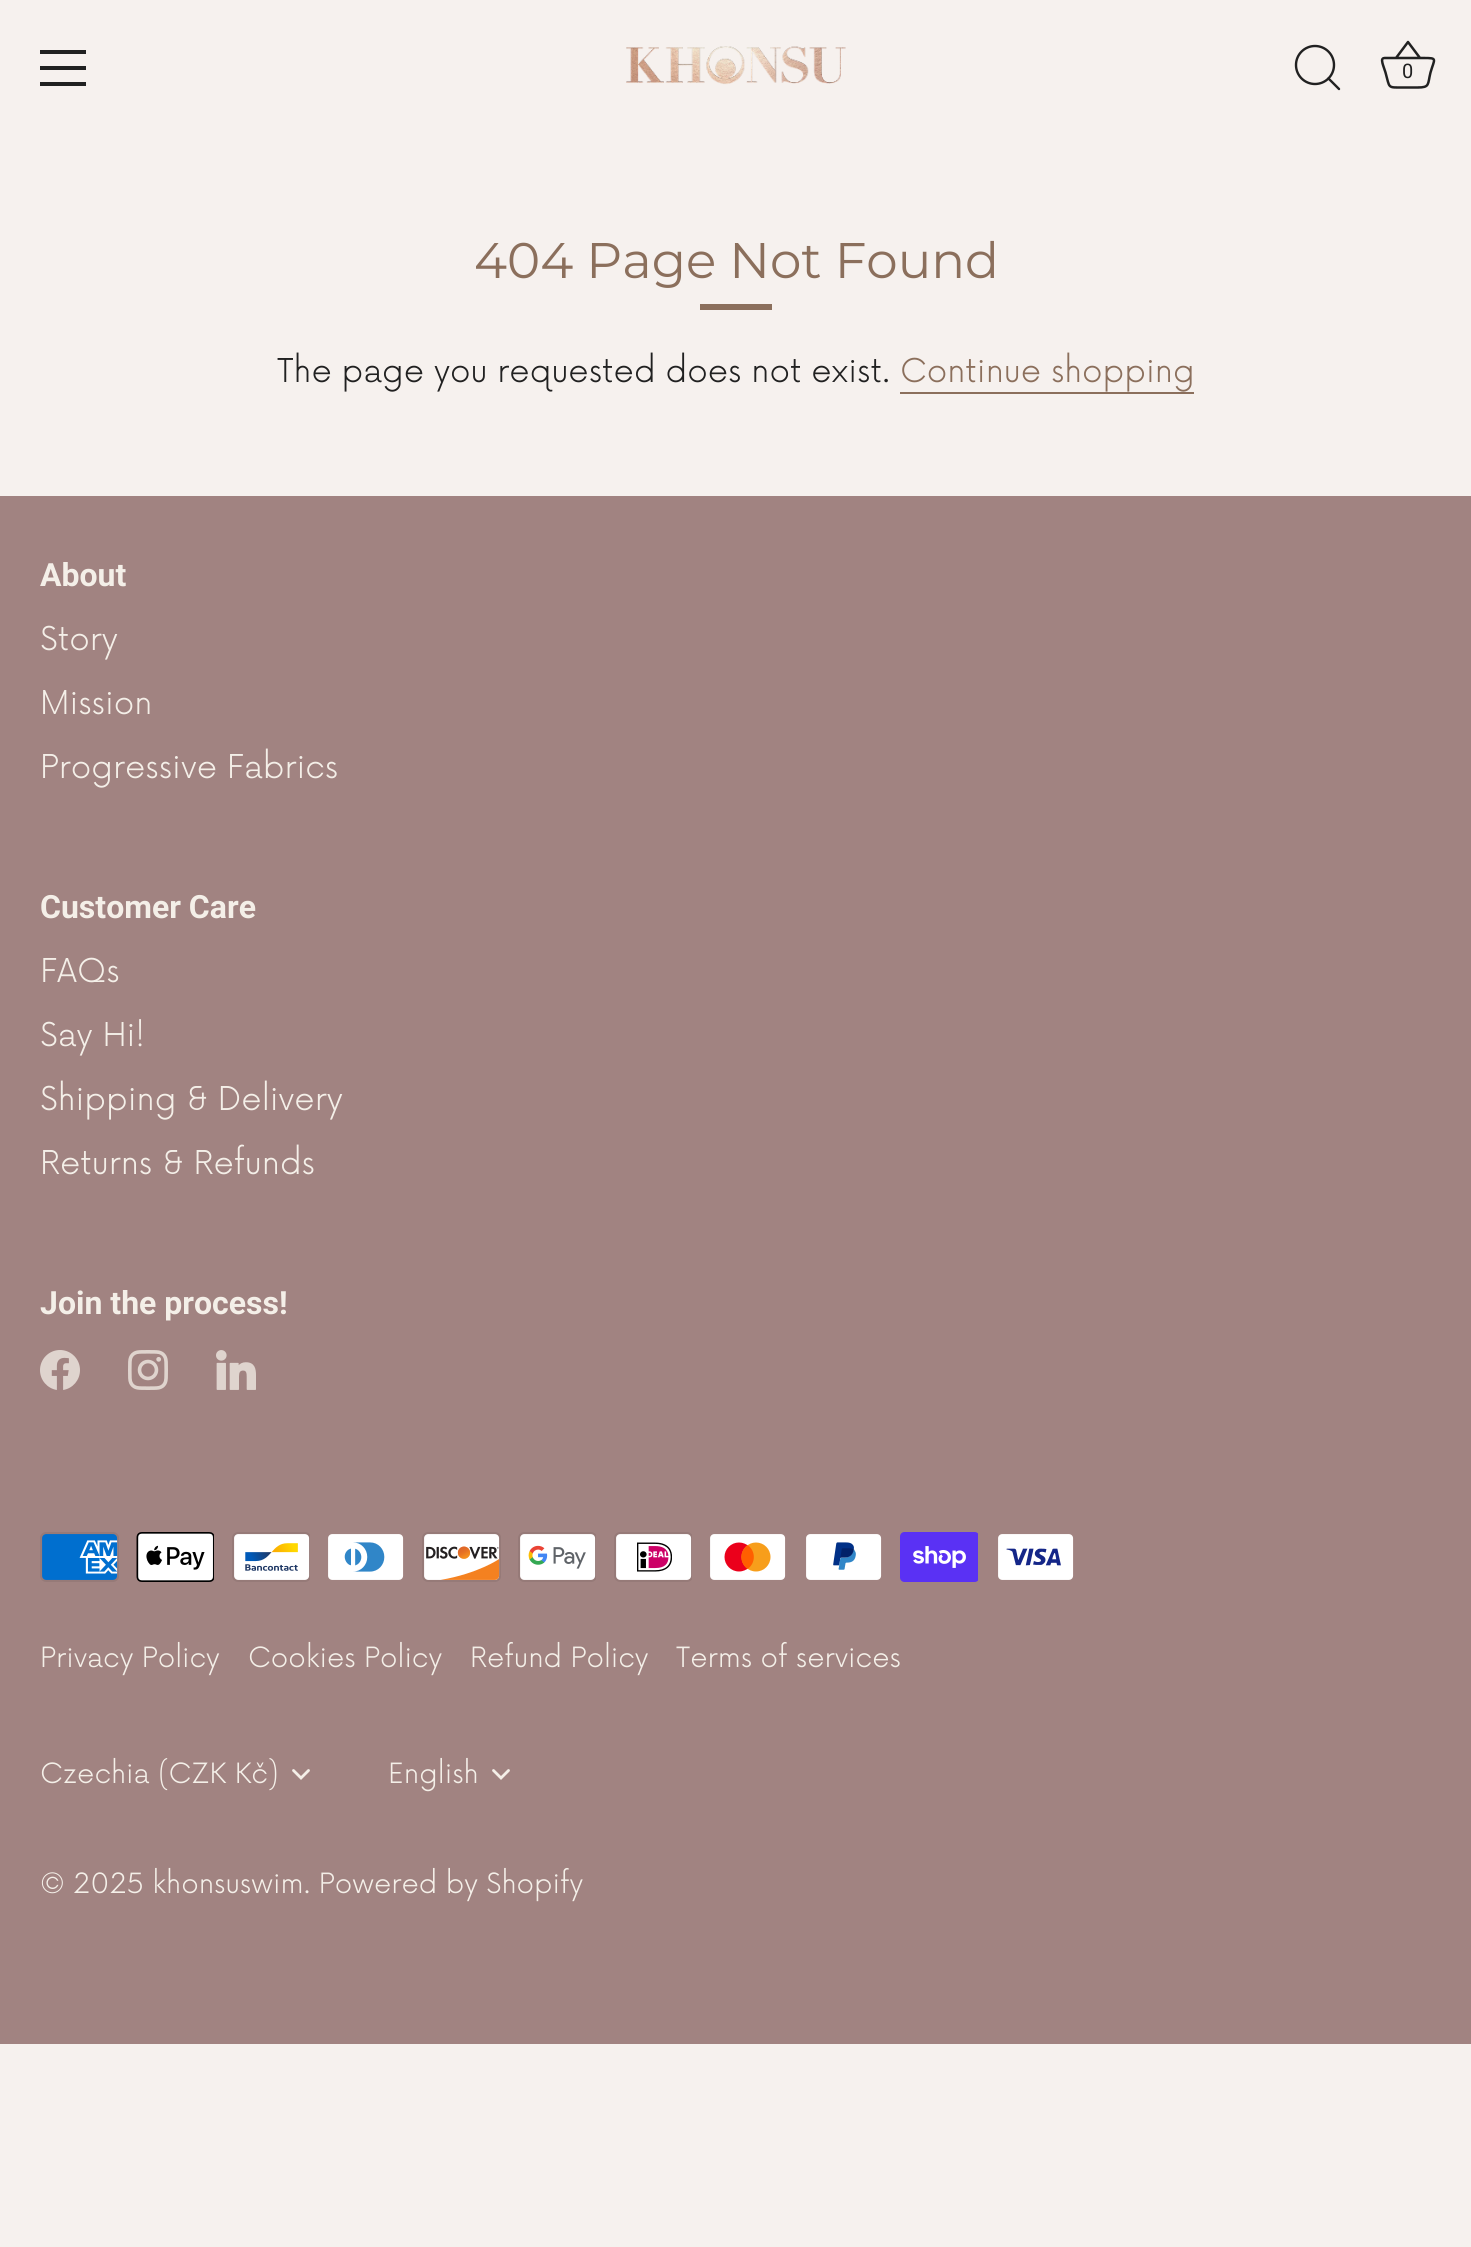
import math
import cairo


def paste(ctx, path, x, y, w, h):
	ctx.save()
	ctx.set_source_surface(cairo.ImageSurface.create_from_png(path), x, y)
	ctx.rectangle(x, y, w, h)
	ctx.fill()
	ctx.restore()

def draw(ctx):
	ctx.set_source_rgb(0.961, 0.945, 0.933)
	ctx.paint()
	ctx.set_source_rgb(0.129, 0.129, 0.129)
	ctx.rectangle(40, 50, 46, 4)
	ctx.rectangle(40, 66, 46, 4)
	ctx.rectangle(40, 82, 46, 4)
	ctx.fill()
	paste(ctx, 'media/1.png', 626, 46, 220, 39)
	ctx.arc(1315, 65, 19, 0, 2 * math.pi)
	ctx.set_line_width(2.4)
	ctx.stroke()
	ctx.new_path()
	ctx.move_to(1339, 89)
	ctx.line_to(1328.5, 78.5)
	ctx.set_line_cap(cairo.LINE_CAP_ROUND)
	ctx.set_line_join(cairo.LINE_JOIN_ROUND)
	ctx.stroke()
	ctx.new_path()
	ctx.move_to(1384.5, 58)
	ctx.curve_to(1380.5, 58, 1382.5, 63, 1383, 65)
	ctx.line_to(1385.5, 72.5)
	ctx.curve_to(1390, 88.5, 1387, 87.5, 1403, 87.5)
	ctx.line_to(1417.5, 87.5)
	ctx.curve_to(1430, 87.5, 1427.5, 84.5, 1430.5, 72.5)
	ctx.curve_to(1434.5, 58.5, 1438, 58, 1423.5, 58)
	ctx.line_to(1384.5, 58)
	ctx.move_to(1396, 58)
	ctx.line_to(1408, 42)
	ctx.line_to(1420, 58)
	ctx.set_line_width(2.5)
	ctx.set_line_cap(cairo.LINE_CAP_BUTT)
	ctx.stroke()
	ctx.select_font_face('Roboto')
	ctx.set_font_size(20)
	ctx.move_to(1402, 78)
	ctx.show_text('0')
	ctx.select_font_face('Montserrat')
	ctx.set_font_size(50)
	ctx.set_source_rgb(0.545, 0.435, 0.361)
	ctx.move_to(474, 278)
	ctx.show_text('404 Page Not Found')
	ctx.rectangle(700, 304, 72, 6)
	ctx.fill()
	ctx.select_font_face('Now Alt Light')
	ctx.set_font_size(32)
	ctx.set_source_rgb(0.129, 0.129, 0.129)
	ctx.move_to(277, 382)
	ctx.show_text('The page you requested does not exist.')
	ctx.set_source_rgb(0.545, 0.435, 0.361)
	ctx.move_to(900, 382)
	ctx.show_text('Continue shopping')
	ctx.rectangle(900, 392, 294, 2)
	ctx.fill()
	ctx.set_source_rgb(0.631, 0.514, 0.506)
	ctx.rectangle(0, 496, 1471, 1548)
	ctx.fill()
	ctx.select_font_face('Roboto', cairo.FONT_SLANT_NORMAL, cairo.FONT_WEIGHT_BOLD)
	ctx.set_source_rgb(0.957, 0.937, 0.91)
	ctx.move_to(40, 586)
	ctx.show_text('About')
	ctx.select_font_face('Now Alt Light')
	for x, y, s in [
		(40, 650, 'Story'),
		(40, 714, 'Mission'),
		(40, 778, 'Progressive Fabrics'),
	]:
		ctx.move_to(x, y)
		ctx.show_text(s)
	ctx.select_font_face('Roboto', cairo.FONT_SLANT_NORMAL, cairo.FONT_WEIGHT_BOLD)
	ctx.move_to(40, 918)
	ctx.show_text('Customer Care')
	ctx.select_font_face('Now Alt Light')
	for x, y, s in [
		(40, 982, 'FAQs'),
		(40, 1046, 'Say Hi!'),
		(40, 1110, 'Shipping & Delivery'),
		(40, 1174, 'Returns & Refunds'),
	]:
		ctx.move_to(x, y)
		ctx.show_text(s)
	ctx.select_font_face('Roboto', cairo.FONT_SLANT_NORMAL, cairo.FONT_WEIGHT_BOLD)
	ctx.move_to(40, 1314)
	ctx.show_text('Join the process!')
	paste(ctx, 'media/2.png', 40, 1350, 40, 40)
	paste(ctx, 'media/3.png', 128, 1350, 40, 40)
	paste(ctx, 'media/4.png', 216, 1350, 40, 40)
	paste(ctx, 'media/5.png', 40, 1532, 79, 50)
	paste(ctx, 'media/6.png', 136, 1532, 78, 50)
	paste(ctx, 'media/7.png', 232, 1532, 78, 50)
	paste(ctx, 'media/8.png', 328, 1534, 76, 46)
	paste(ctx, 'media/9.png', 422, 1532, 79, 50)
	paste(ctx, 'media/10.png', 518, 1532, 78, 50)
	paste(ctx, 'media/11.png', 614, 1532, 78, 50)
	paste(ctx, 'media/12.png', 710, 1534, 76, 46)
	paste(ctx, 'media/13.png', 806, 1534, 76, 46)
	paste(ctx, 'media/14.png', 900, 1532, 78, 50)
	paste(ctx, 'media/15.png', 998, 1534, 76, 46)
	ctx.select_font_face('Now Alt Light')
	ctx.set_font_size(27.25)
	for x, y, s in [
		(40, 1667, 'Privacy Policy'),
		(248, 1667, 'Cookies Policy'),
		(470, 1667, 'Refund Policy'),
		(676, 1667, 'Terms of services'),
		(40, 1783, 'Czechia (CZK Kč)'),
	]:
		ctx.move_to(x, y)
		ctx.show_text(s)
	ctx.new_path()
	ctx.move_to(293.5, 1770.5)
	ctx.line_to(301, 1778)
	ctx.line_to(308.5, 1770.5)
	ctx.set_line_width(2.8)
	ctx.set_line_cap(cairo.LINE_CAP_ROUND)
	ctx.set_line_join(cairo.LINE_JOIN_MITER)
	ctx.stroke()
	ctx.move_to(388, 1783)
	ctx.show_text('English')
	ctx.new_path()
	ctx.move_to(493.5, 1770.5)
	ctx.line_to(501, 1778)
	ctx.line_to(508.5, 1770.5)
	ctx.stroke()
	ctx.move_to(40, 1893)
	ctx.show_text('© 2025 khonsuswim. Powered by Shopify')


surface = cairo.ImageSurface(cairo.FORMAT_RGB24, 1471, 2247)
ctx = cairo.Context(surface)
options = cairo.FontOptions()
options.set_hint_metrics(cairo.HINT_METRICS_OFF)
options.set_hint_style(cairo.HINT_STYLE_NONE)
ctx.set_font_options(options)
ctx.set_miter_limit(4)
draw(ctx)
surface.write_to_png('image.png')
